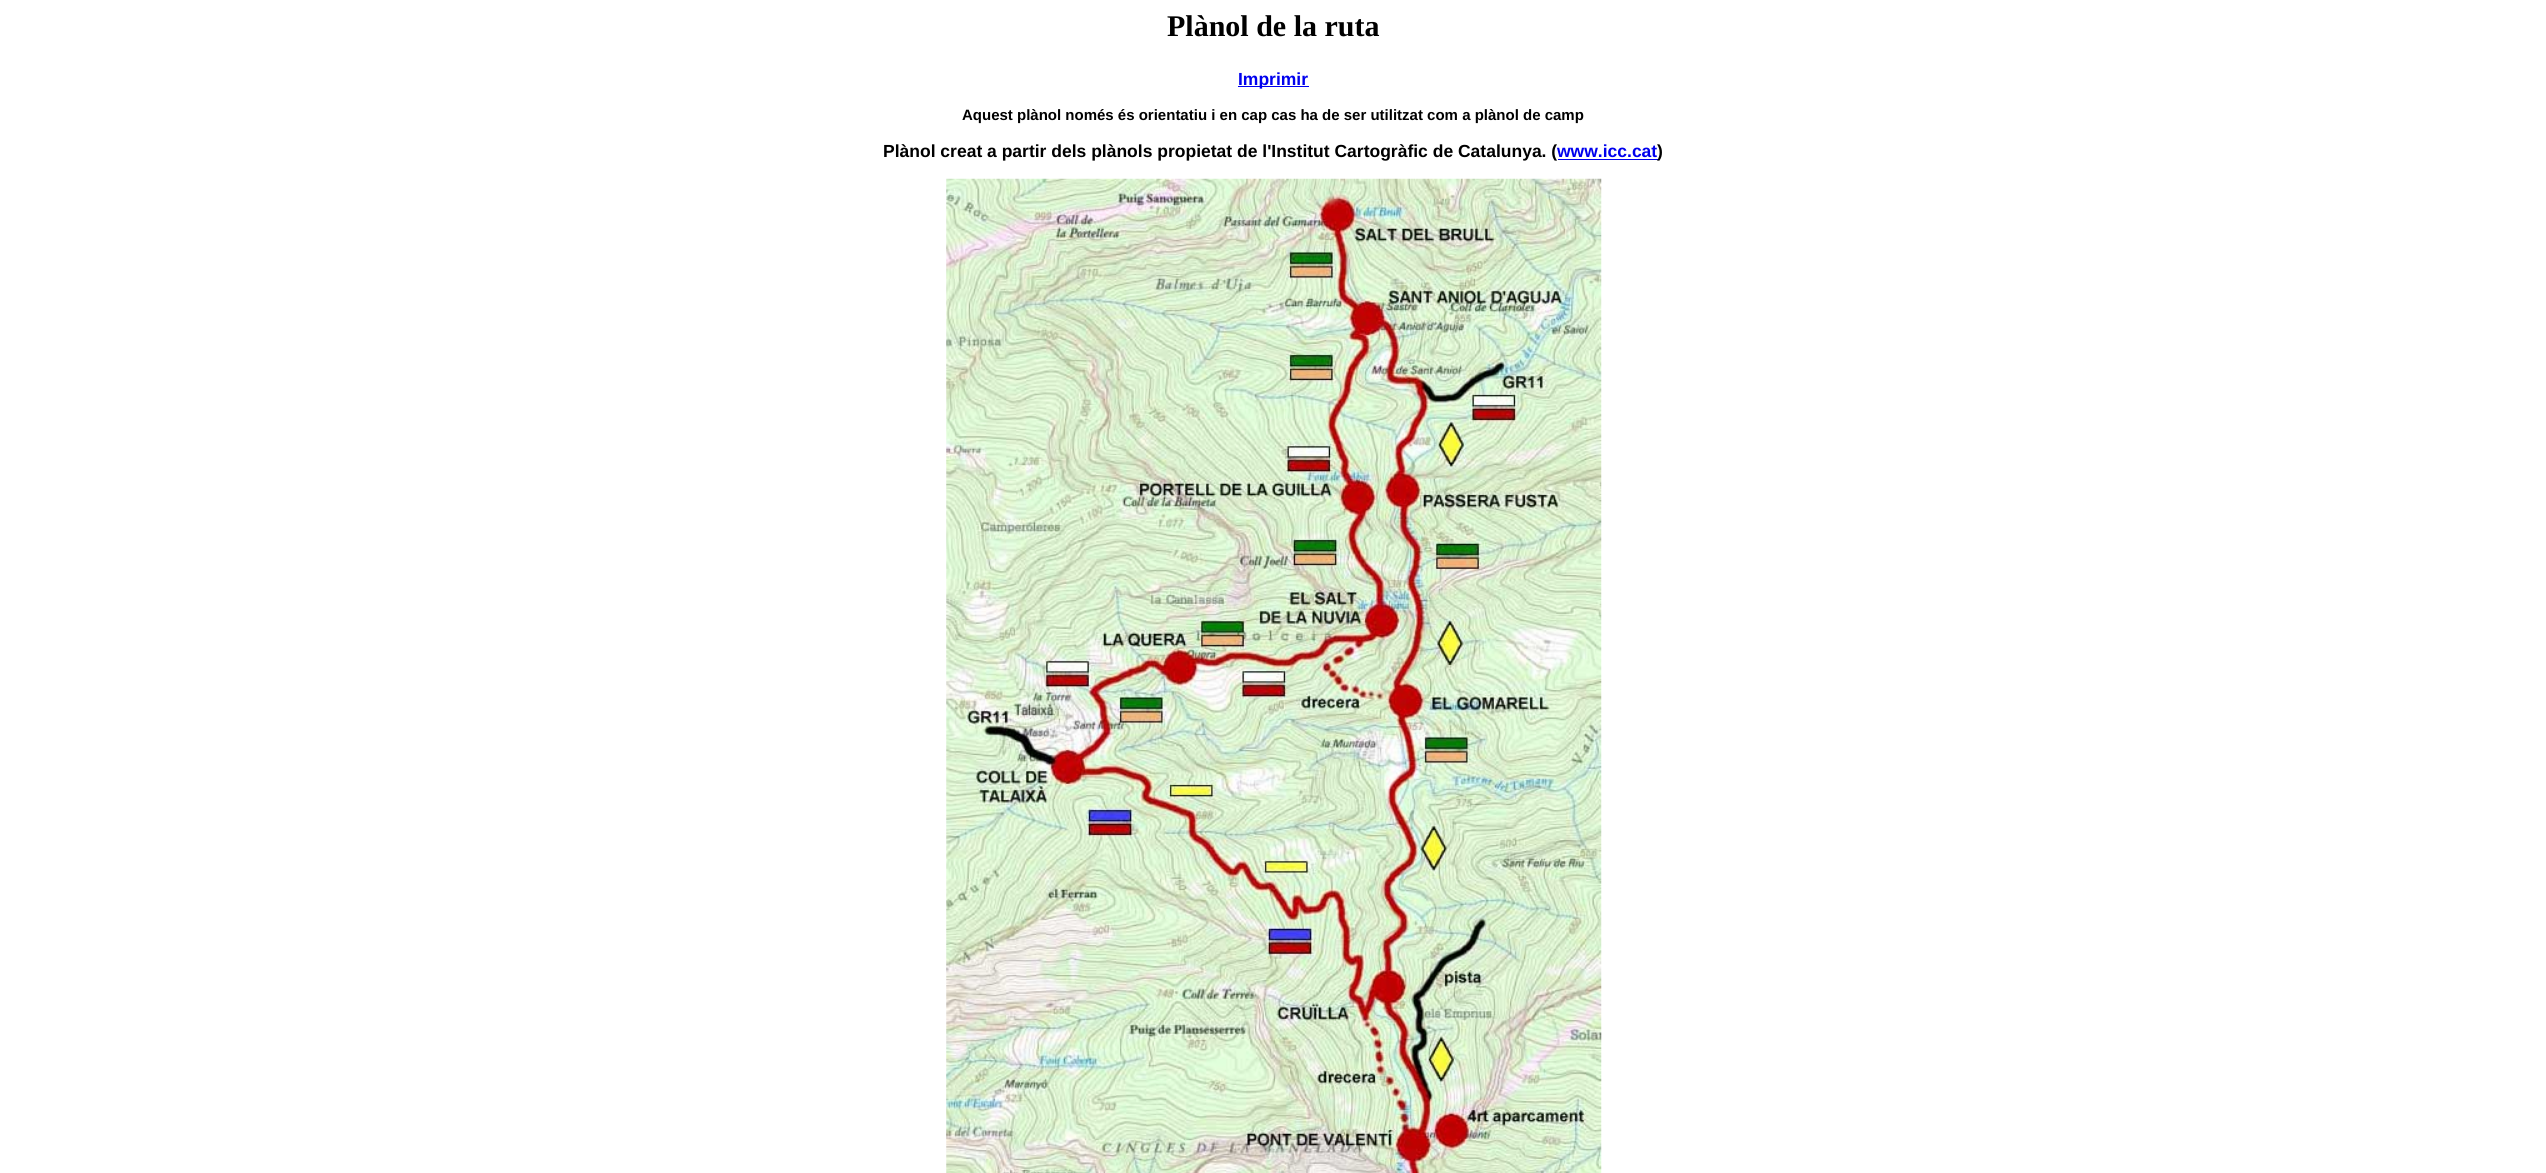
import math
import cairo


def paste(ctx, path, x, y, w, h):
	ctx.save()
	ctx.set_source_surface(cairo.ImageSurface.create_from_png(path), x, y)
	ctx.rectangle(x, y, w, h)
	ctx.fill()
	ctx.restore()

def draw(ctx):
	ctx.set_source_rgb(1, 1, 1)
	ctx.paint()
	ctx.select_font_face('Liberation Serif', cairo.FONT_SLANT_NORMAL, cairo.FONT_WEIGHT_BOLD)
	ctx.set_font_size(30)
	ctx.set_source_rgb(0, 0, 0)
	ctx.move_to(1167, 36)
	ctx.show_text('Plànol de la ruta')
	ctx.set_source_rgb(0, 0, 0.933)
	ctx.rectangle(1238, 86, 71, 1)
	ctx.fill()
	ctx.select_font_face('Liberation Sans', cairo.FONT_SLANT_NORMAL, cairo.FONT_WEIGHT_BOLD)
	ctx.set_font_size(17.5)
	ctx.move_to(1238, 85)
	ctx.show_text('Imprimir')
	ctx.set_font_size(15)
	ctx.set_source_rgb(0, 0, 0)
	ctx.move_to(962, 120)
	ctx.show_text('Aquest plànol només és orientatiu i en cap cas ha de ser utilitzat com a plànol de camp')
	ctx.set_font_size(17.5)
	ctx.move_to(883, 157)
	ctx.show_text('Plànol creat a partir dels plànols propietat de l\'Institut Cartogràfic de Catalunya. (')
	ctx.set_source_rgb(0, 0, 0.933)
	ctx.move_to(1557, 157)
	ctx.show_text('www.icc.cat')
	ctx.rectangle(1558, 159, 100, 1)
	ctx.fill()
	ctx.set_source_rgb(0, 0, 0)
	ctx.move_to(1657, 157)
	ctx.show_text(')')
	paste(ctx, 'media/1.png', 946, 178, 656, 995)


surface = cairo.ImageSurface(cairo.FORMAT_RGB24, 2546, 1173)
ctx = cairo.Context(surface)
options = cairo.FontOptions()
options.set_hint_metrics(cairo.HINT_METRICS_OFF)
options.set_hint_style(cairo.HINT_STYLE_NONE)
ctx.set_font_options(options)
ctx.set_miter_limit(4)
draw(ctx)
surface.write_to_png('image.png')
